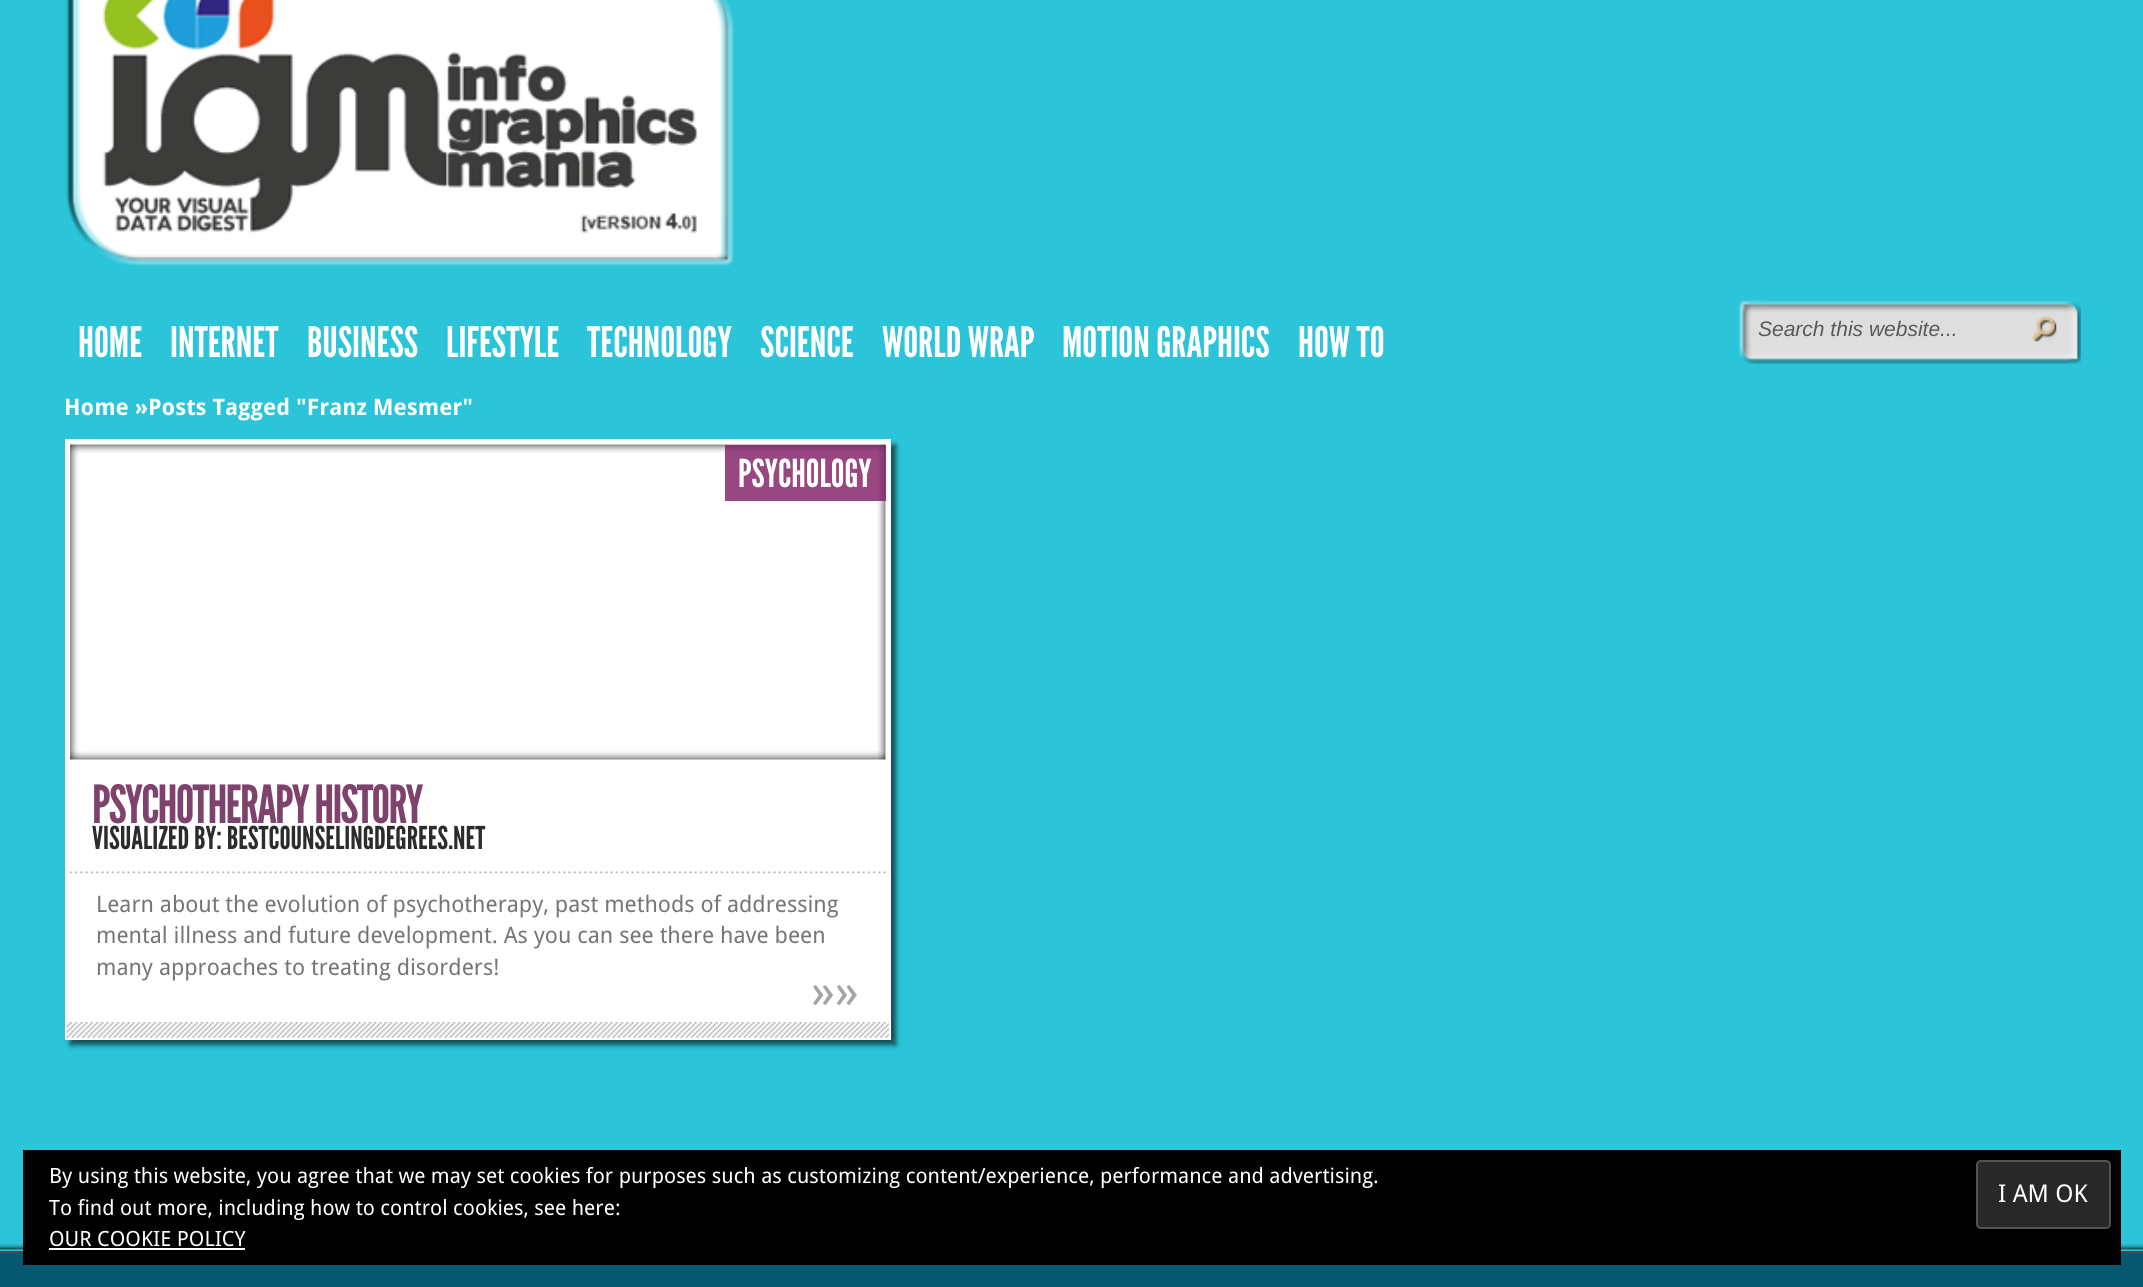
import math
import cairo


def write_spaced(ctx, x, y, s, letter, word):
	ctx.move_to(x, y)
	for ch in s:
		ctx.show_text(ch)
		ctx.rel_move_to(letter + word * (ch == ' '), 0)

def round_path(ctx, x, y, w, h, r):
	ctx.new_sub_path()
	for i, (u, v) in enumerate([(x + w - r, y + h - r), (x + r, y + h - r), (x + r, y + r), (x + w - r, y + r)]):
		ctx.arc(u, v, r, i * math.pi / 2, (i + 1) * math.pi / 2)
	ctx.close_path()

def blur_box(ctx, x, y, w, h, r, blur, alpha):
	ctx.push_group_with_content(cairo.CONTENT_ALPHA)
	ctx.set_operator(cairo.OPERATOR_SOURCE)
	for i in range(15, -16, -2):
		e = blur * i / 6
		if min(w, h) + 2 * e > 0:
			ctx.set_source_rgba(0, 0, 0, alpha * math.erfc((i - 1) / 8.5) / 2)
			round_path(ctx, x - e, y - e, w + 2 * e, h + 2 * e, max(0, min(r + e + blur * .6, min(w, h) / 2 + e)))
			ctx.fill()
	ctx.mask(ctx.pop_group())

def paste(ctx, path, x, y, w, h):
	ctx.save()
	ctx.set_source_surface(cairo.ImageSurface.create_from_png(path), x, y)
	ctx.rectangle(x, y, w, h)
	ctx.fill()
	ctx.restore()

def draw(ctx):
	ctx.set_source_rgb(0.169, 0.769, 0.847)
	ctx.paint()
	paste(ctx, 'media/1.png', 66, 0, 668, 267)
	ctx.select_font_face('League Gothic')
	ctx.set_font_size(42)
	ctx.set_source_rgb(1, 1, 1)
	for x, y, s in [
		(78, 357, 'HOME'),
		(170, 357, 'INTERNET'),
		(307, 357, 'BUSINESS'),
		(446, 357, 'LIFESTYLE'),
		(587, 357, 'TECHNOLOGY'),
		(760, 357, 'SCIENCE'),
		(882, 357, 'WORLD WRAP'),
		(1062, 357, 'MOTION GRAPHICS'),
		(1298, 357, 'HOW TO'),
	]:
		ctx.move_to(x, y)
		ctx.show_text(s)
	paste(ctx, 'media/2.png', 1739, 299, 342, 65)
	ctx.select_font_face('Liberation Sans', cairo.FONT_SLANT_ITALIC)
	ctx.set_font_size(21)
	ctx.set_source_rgb(0.349, 0.349, 0.349)
	ctx.move_to(1758, 336)
	ctx.show_text('Search this website...')
	paste(ctx, 'media/3.png', 2031, 316, 26, 26)
	ctx.select_font_face('Droid Sans', cairo.FONT_SLANT_NORMAL, cairo.FONT_WEIGHT_BOLD)
	ctx.set_font_size(22.75)
	ctx.set_source_rgb(1, 1, 1)
	ctx.move_to(64, 415)
	ctx.show_text('Home »Posts Tagged "Franz Mesmer"')
	ctx.set_source_rgb(0, 0, 0)
	blur_box(ctx, 70, 445, 826, 600, 0, 2.5, 0.6)
	ctx.set_source_rgb(1, 1, 1)
	ctx.rectangle(65, 439, 826, 601)
	ctx.fill()
	paste(ctx, 'media/4.png', 70, 444, 816, 316)
	ctx.set_source_rgba(0.498, 0.102, 0.38, 0.8)
	ctx.rectangle(725, 445, 161, 56)
	ctx.fill()
	ctx.select_font_face('League Gothic')
	ctx.set_font_size(38.5)
	ctx.set_source_rgb(1, 1, 1)
	ctx.move_to(738, 487)
	ctx.show_text('PSYCHOLOGY')
	ctx.set_font_size(52.5)
	ctx.set_source_rgb(0.494, 0.259, 0.427)
	write_spaced(ctx, 92, 823, 'PSYCHOTHERAPY HISTORY', -1.75, 0)
	ctx.set_font_size(31.5)
	ctx.set_source_rgb(0.173, 0.173, 0.173)
	ctx.move_to(92, 849)
	ctx.show_text('VISUALIZED BY: BESTCOUNSELINGDEGREES.NET')
	paste(ctx, 'media/5.png', 66, 1022, 823, 16)
	paste(ctx, 'media/6.png', 66, 871, 823, 3)
	ctx.select_font_face('Droid Sans')
	ctx.set_font_size(22.75)
	ctx.set_source_rgb(0.478, 0.459, 0.459)
	for x, y, s in [
		(96, 912, 'Learn about the evolution of psychotherapy, past methods of addressing'),
		(96, 943, 'mental illness and future development. As you can see there have been'),
		(96, 975, 'many approaches to treating disorders!'),
	]:
		ctx.move_to(x, y)
		ctx.show_text(s)
	ctx.set_font_size(49)
	ctx.set_source_rgb(0.647, 0.647, 0.647)
	ctx.move_to(811, 1008)
	ctx.show_text('»»')
	paste(ctx, 'media/7.png', 0, 1244, 2143, 6)
	ctx.set_source_rgb(0.29, 0.29, 0.29)
	ctx.rectangle(0, 1251, 2143, 2)
	ctx.fill()
	ctx.set_source_rgb(0.027, 0.341, 0.439)
	ctx.rectangle(0, 1253, 2143, 34)
	ctx.fill()
	ctx.set_source_rgb(0, 0, 0)
	ctx.rectangle(23, 1150, 2098, 115)
	ctx.fill()
	ctx.set_font_size(21)
	ctx.set_source_rgb(1, 1, 1)
	ctx.move_to(49, 1183)
	ctx.show_text('By using this website, you agree that we may set cookies for purposes such as customizing content/experience, performance and advertising.')
	ctx.set_source_rgb(0.157, 0.157, 0.157)
	round_path(ctx, 1977, 1161, 133, 67, 4)
	ctx.fill_preserve()
	ctx.set_source_rgb(0.325, 0.325, 0.325)
	ctx.stroke()
	ctx.set_font_size(24.5)
	ctx.set_source_rgb(1, 1, 1)
	ctx.move_to(1998, 1202)
	ctx.show_text('I AM OK')
	ctx.set_font_size(21)
	ctx.move_to(49, 1215)
	ctx.show_text('To find out more, including how to control cookies, see here:')
	ctx.move_to(49, 1246)
	ctx.show_text('OUR COOKIE POLICY')
	ctx.rectangle(49, 1248, 196, 2)
	ctx.fill()


surface = cairo.ImageSurface(cairo.FORMAT_RGB24, 2143, 1287)
ctx = cairo.Context(surface)
options = cairo.FontOptions()
options.set_hint_metrics(cairo.HINT_METRICS_OFF)
options.set_hint_style(cairo.HINT_STYLE_NONE)
ctx.set_font_options(options)
ctx.set_miter_limit(4)
draw(ctx)
surface.write_to_png('image.png')
